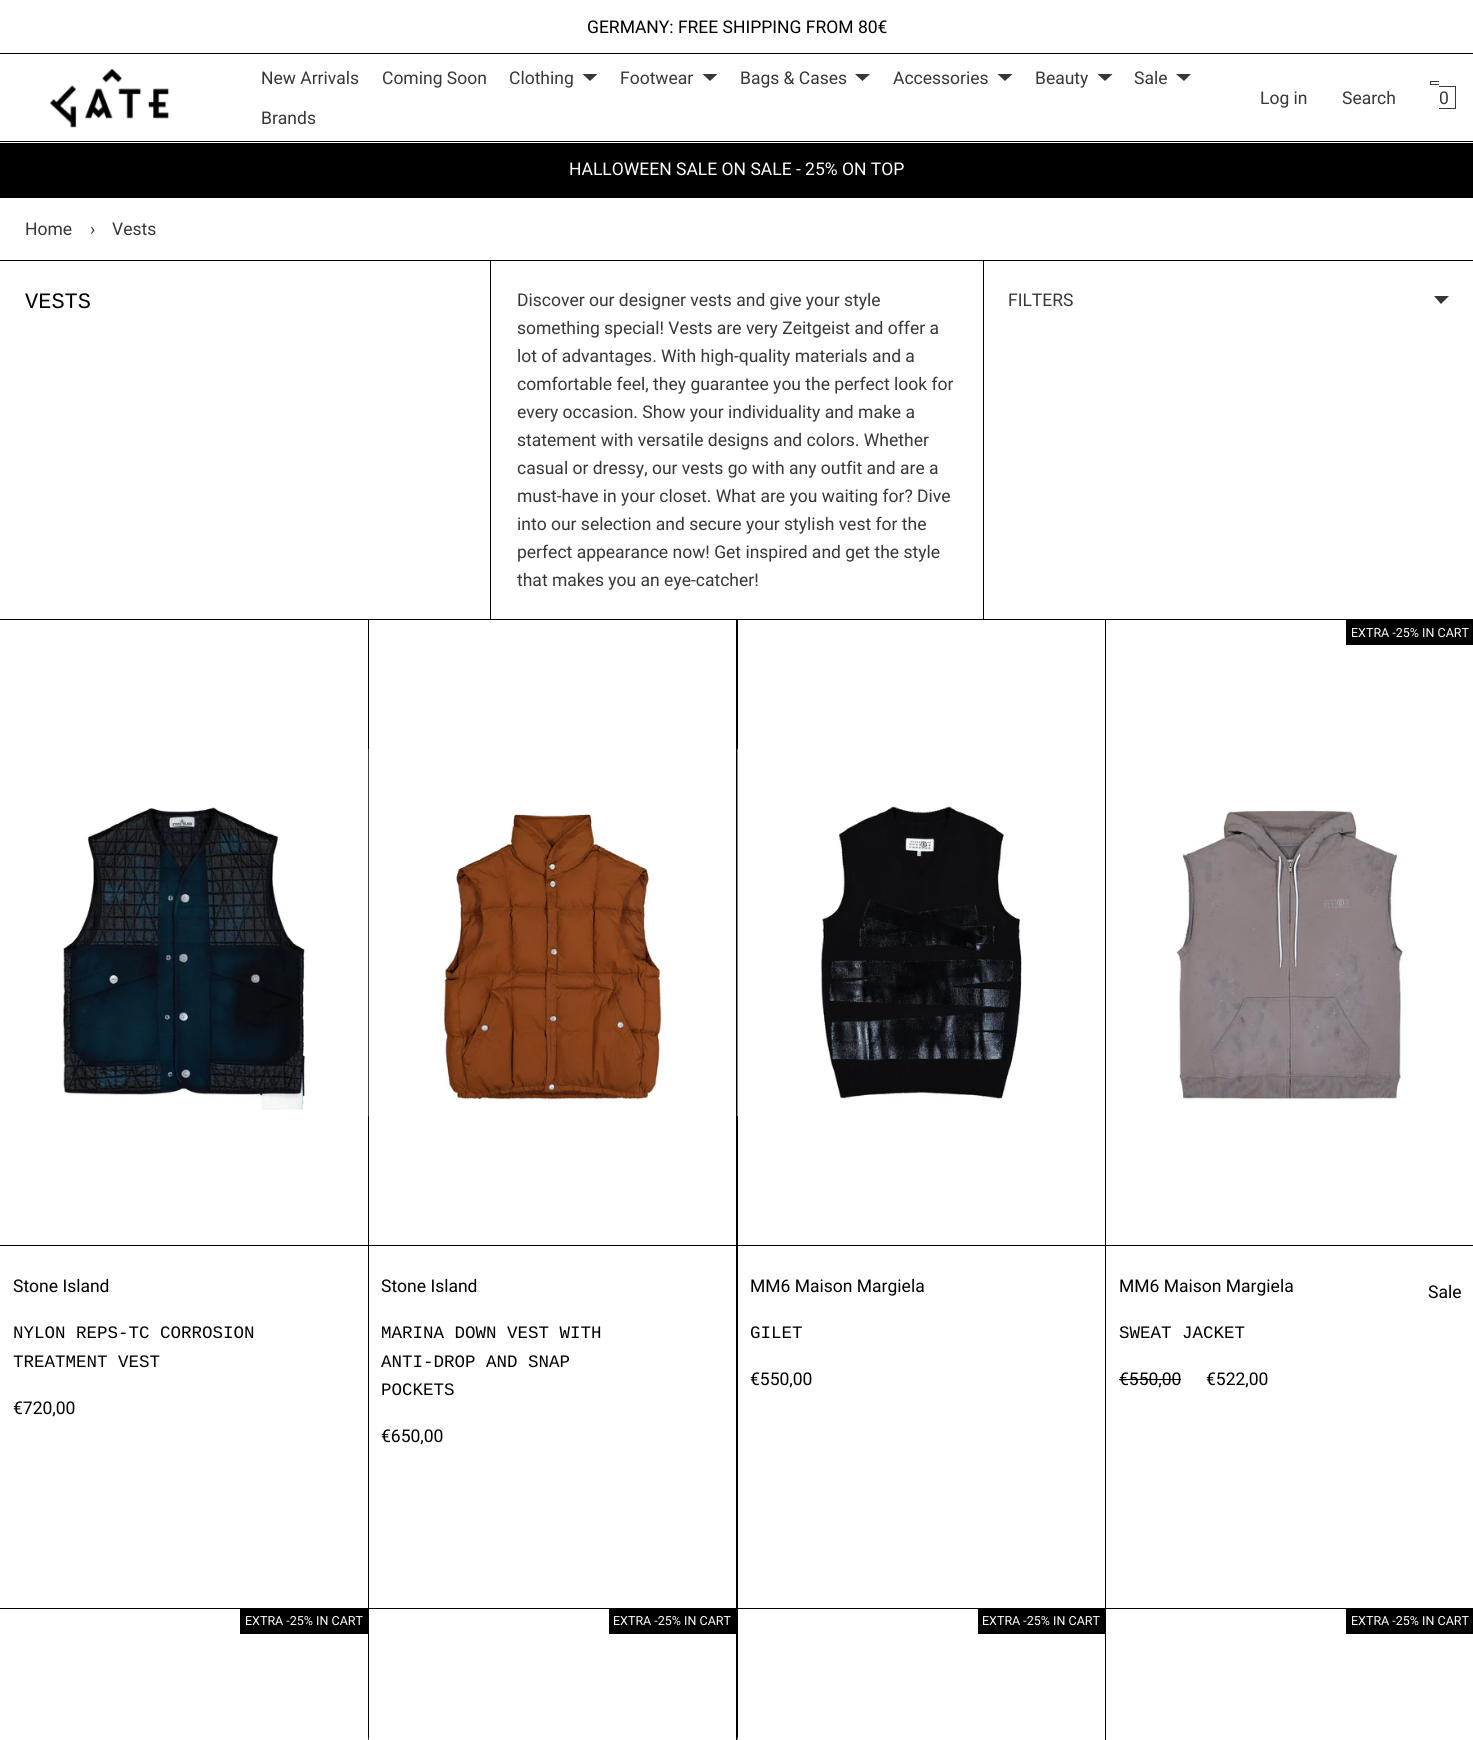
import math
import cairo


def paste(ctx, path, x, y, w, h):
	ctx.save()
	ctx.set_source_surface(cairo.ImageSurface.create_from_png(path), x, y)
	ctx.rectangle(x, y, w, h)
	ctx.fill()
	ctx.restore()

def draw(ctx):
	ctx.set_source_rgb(1, 1, 1)
	ctx.paint()
	ctx.set_source_rgb(0, 0, 0)
	ctx.rectangle(0, 53, 1473, 1)
	ctx.fill()
	ctx.select_font_face('Roboto')
	ctx.set_font_size(17.5)
	ctx.move_to(587, 33)
	ctx.show_text('GERMANY: FREE SHIPPING FROM 80€')
	ctx.rectangle(0, 141, 1473, 1)
	ctx.fill()
	paste(ctx, 'media/1.png', 50, 68, 119, 60)
	ctx.set_source_rgb(0.216, 0.216, 0.216)
	for x, y, s in [
		(261, 84, 'New Arrivals'),
		(382, 84, 'Coming Soon'),
		(509, 84, 'Clothing'),
	]:
		ctx.move_to(x, y)
		ctx.show_text(s)
	ctx.new_path()
	ctx.move_to(582.5, 74)
	ctx.line_to(597.5, 74)
	ctx.line_to(590, 81)
	ctx.close_path()
	ctx.fill()
	ctx.move_to(620, 84)
	ctx.show_text('Footwear')
	ctx.new_path()
	ctx.move_to(702.5, 74)
	ctx.line_to(717.5, 74)
	ctx.line_to(710, 81)
	ctx.close_path()
	ctx.fill()
	ctx.move_to(740, 84)
	ctx.show_text('Bags & Cases')
	ctx.new_path()
	ctx.move_to(855, 74)
	ctx.line_to(870, 74)
	ctx.line_to(862.5, 81)
	ctx.close_path()
	ctx.fill()
	ctx.move_to(893, 84)
	ctx.show_text('Accessories')
	ctx.new_path()
	ctx.move_to(997.5, 74)
	ctx.line_to(1012.5, 74)
	ctx.line_to(1005, 81)
	ctx.close_path()
	ctx.fill()
	ctx.move_to(1035, 84)
	ctx.show_text('Beauty')
	ctx.new_path()
	ctx.move_to(1097.5, 74)
	ctx.line_to(1112.5, 74)
	ctx.line_to(1105, 81)
	ctx.close_path()
	ctx.fill()
	ctx.move_to(1134, 84)
	ctx.show_text('Sale')
	ctx.new_path()
	ctx.move_to(1176, 74)
	ctx.line_to(1191, 74)
	ctx.line_to(1184, 81)
	ctx.close_path()
	ctx.fill()
	for x, y, s in [
		(261, 124, 'Brands'),
		(1260, 104, 'Log in'),
		(1342, 104, 'Search'),
		(1439, 104, '0'),
	]:
		ctx.move_to(x, y)
		ctx.show_text(s)
	ctx.rectangle(1430, 81, 9, 1)
	ctx.rectangle(1430, 84, 9, 1)
	ctx.rectangle(1430, 81, 1, 4)
	ctx.rectangle(1439, 86, 17, 1)
	ctx.rectangle(1455, 86, 1, 23)
	ctx.rectangle(1439, 108, 17, 1)
	ctx.fill()
	ctx.set_source_rgb(0, 0, 0)
	ctx.rectangle(0, 143, 1473, 55)
	ctx.fill()
	ctx.set_source_rgb(1, 1, 1)
	ctx.move_to(569, 175)
	ctx.show_text('HALLOWEEN SALE ON SALE - 25% ON TOP')
	ctx.set_source_rgb(0.216, 0.216, 0.216)
	for x, y, s in [
		(25, 235, 'Home'),
		(90, 235, '›'),
		(112, 235, 'Vests'),
	]:
		ctx.move_to(x, y)
		ctx.show_text(s)
	ctx.rectangle(-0.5, 260.5, 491, 359)
	ctx.set_source_rgb(0, 0, 0)
	ctx.set_line_width(1)
	ctx.stroke()
	ctx.select_font_face('Liberation Mono')
	ctx.set_font_size(22)
	ctx.move_to(25, 308)
	ctx.show_text('VESTS')
	ctx.rectangle(490.5, 260.5, 493, 359)
	ctx.stroke()
	ctx.select_font_face('Roboto')
	ctx.set_font_size(17.5)
	ctx.set_source_rgb(0.216, 0.216, 0.216)
	for x, y, s in [
		(517, 306, 'Discover our designer vests and give your style'),
		(517, 334, 'something special! Vests are very Zeitgeist and offer a'),
		(517, 362, 'lot of advantages. With high-quality materials and a'),
		(517, 390, 'comfortable feel, they guarantee you the perfect look for'),
		(517, 418, 'every occasion. Show your individuality and make a'),
		(517, 446, 'statement with versatile designs and colors. Whether'),
		(517, 474, 'casual or dressy, our vests go with any outfit and are a'),
		(517, 502, 'must-have in your closet. What are you waiting for? Dive'),
		(517, 530, 'into our selection and secure your stylish vest for the'),
		(517, 558, 'perfect appearance now! Get inspired and get the style'),
		(517, 586, 'that makes you an eye-catcher!'),
	]:
		ctx.move_to(x, y)
		ctx.show_text(s)
	ctx.rectangle(983.5, 260.5, 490, 359)
	ctx.set_source_rgb(0, 0, 0)
	ctx.stroke()
	ctx.set_source_rgb(0.216, 0.216, 0.216)
	ctx.move_to(1008, 306)
	ctx.show_text('FILTERS')
	ctx.new_path()
	ctx.move_to(1434, 296)
	ctx.line_to(1449, 296)
	ctx.line_to(1441, 304)
	ctx.close_path()
	ctx.fill()
	paste(ctx, 'media/2.png', 62, 807, 245, 303)
	ctx.set_source_rgb(0, 0, 0)
	ctx.rectangle(0, 1245, 368, 1)
	ctx.fill()
	ctx.move_to(13, 1292)
	ctx.show_text('Stone Island')
	ctx.select_font_face('Liberation Mono')
	ctx.move_to(13, 1338)
	ctx.show_text('NYLON REPS-TC CORROSION')
	ctx.move_to(13, 1367)
	ctx.show_text('TREATMENT VEST')
	ctx.select_font_face('Roboto')
	ctx.move_to(13, 1414)
	ctx.show_text('€720,00')
	ctx.rectangle(369, 1245, 367, 1)
	ctx.fill()
	ctx.save()
	ctx.rectangle(0, 620, 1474, 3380)
	ctx.clip()
	ctx.rectangle(368.5, 619.5, 369, 989)
	ctx.stroke()
	ctx.restore()
	paste(ctx, 'media/3.png', 368, 748, 295, 369)
	ctx.move_to(381, 1292)
	ctx.show_text('Stone Island')
	ctx.select_font_face('Liberation Mono')
	for x, y, s in [
		(381, 1338, 'MARINA DOWN VEST WITH'),
		(381, 1367, 'ANTI-DROP AND SNAP'),
		(381, 1395, 'POCKETS'),
	]:
		ctx.move_to(x, y)
		ctx.show_text(s)
	ctx.select_font_face('Roboto')
	ctx.move_to(381, 1442)
	ctx.show_text('€650,00')
	ctx.rectangle(738, 1245, 367, 1)
	ctx.fill()
	ctx.save()
	ctx.rectangle(0, 620, 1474, 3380)
	ctx.clip()
	ctx.rectangle(736.5, 619.5, 369, 989)
	ctx.stroke()
	ctx.restore()
	paste(ctx, 'media/4.png', 737, 748, 285, 369)
	ctx.move_to(750, 1292)
	ctx.show_text('MM6 Maison Margiela')
	ctx.select_font_face('Liberation Mono')
	ctx.move_to(750, 1338)
	ctx.show_text('GILET')
	ctx.select_font_face('Roboto')
	ctx.move_to(750, 1385)
	ctx.show_text('€550,00')
	ctx.rectangle(1106, 1245, 367, 1)
	ctx.fill()
	ctx.rectangle(1119, 1379, 62, 1)
	ctx.fill()
	ctx.save()
	ctx.rectangle(0, 620, 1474, 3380)
	ctx.clip()
	ctx.rectangle(1105.5, 619.5, 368, 989)
	ctx.stroke()
	ctx.restore()
	ctx.rectangle(1346, 620, 127, 25)
	ctx.fill()
	ctx.set_font_size(12.5)
	ctx.set_source_rgb(1, 1, 1)
	ctx.move_to(1351, 637)
	ctx.show_text('EXTRA -25% IN CART')
	paste(ctx, 'media/5.png', 1176, 809, 227, 292)
	ctx.set_font_size(17.5)
	ctx.set_source_rgb(0, 0, 0)
	ctx.move_to(1119, 1292)
	ctx.show_text('MM6 Maison Margiela')
	ctx.select_font_face('Liberation Mono')
	ctx.move_to(1119, 1338)
	ctx.show_text('SWEAT JACKET')
	ctx.select_font_face('Roboto')
	for x, y, s in [
		(1119, 1385, '€550,00'),
		(1206, 1385, '€522,00'),
		(1428, 1298, 'Sale'),
	]:
		ctx.move_to(x, y)
		ctx.show_text(s)
	ctx.rectangle(-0.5, 1608.5, 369, 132)
	ctx.stroke()
	ctx.rectangle(240, 1609, 128, 25)
	ctx.fill()
	ctx.set_font_size(12.5)
	ctx.set_source_rgb(1, 1, 1)
	ctx.move_to(245, 1625)
	ctx.show_text('EXTRA -25% IN CART')
	ctx.rectangle(368.5, 1608.5, 369, 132)
	ctx.set_source_rgb(0, 0, 0)
	ctx.stroke()
	ctx.rectangle(609, 1609, 127, 25)
	ctx.fill()
	ctx.set_source_rgb(1, 1, 1)
	ctx.move_to(613, 1625)
	ctx.show_text('EXTRA -25% IN CART')
	paste(ctx, 'media/6.png', 368, 1737, 1, 3)
	ctx.rectangle(736.5, 1608.5, 369, 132)
	ctx.set_source_rgb(0, 0, 0)
	ctx.stroke()
	ctx.rectangle(978, 1609, 127, 25)
	ctx.fill()
	ctx.set_source_rgb(1, 1, 1)
	ctx.move_to(982, 1625)
	ctx.show_text('EXTRA -25% IN CART')
	paste(ctx, 'media/7.png', 737, 1737, 1, 3)
	ctx.set_source_rgb(0, 0, 0)
	ctx.rectangle(1346, 1609, 127, 25)
	ctx.fill()
	ctx.set_source_rgb(1, 1, 1)
	ctx.move_to(1351, 1625)
	ctx.show_text('EXTRA -25% IN CART')


surface = cairo.ImageSurface(cairo.FORMAT_RGB24, 1473, 1740)
ctx = cairo.Context(surface)
options = cairo.FontOptions()
options.set_hint_metrics(cairo.HINT_METRICS_OFF)
options.set_hint_style(cairo.HINT_STYLE_NONE)
ctx.set_font_options(options)
ctx.set_miter_limit(4)
draw(ctx)
surface.write_to_png('image.png')
